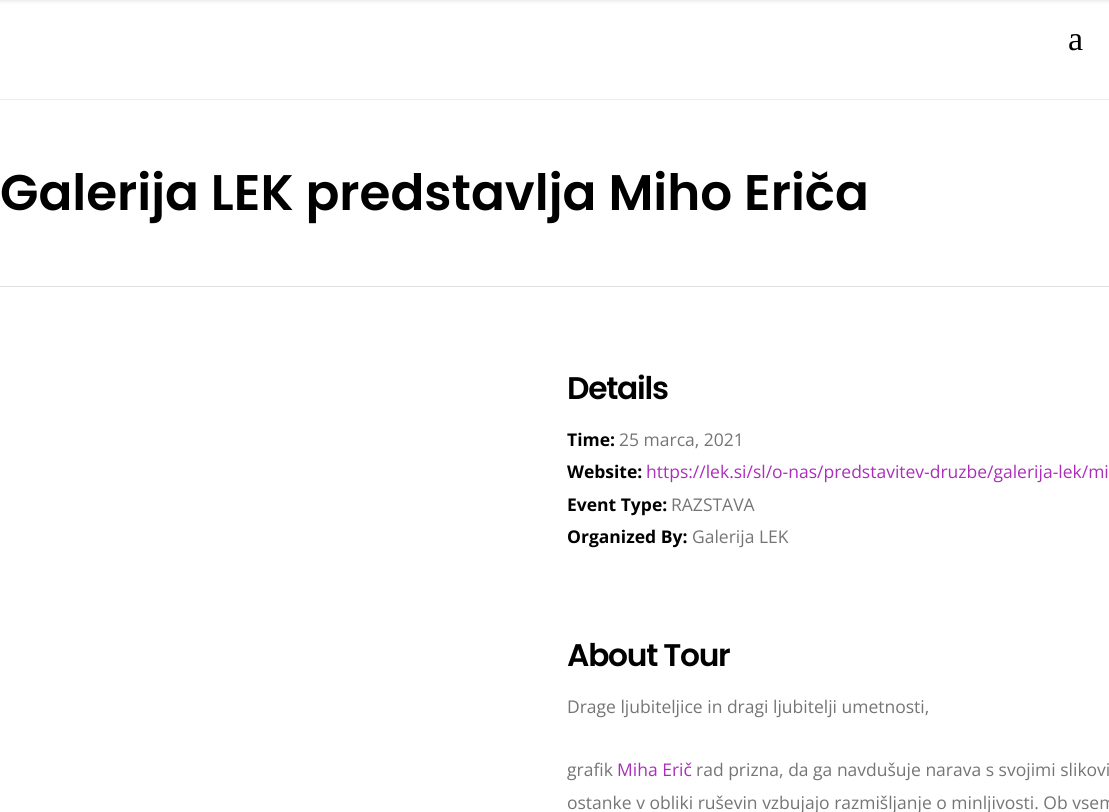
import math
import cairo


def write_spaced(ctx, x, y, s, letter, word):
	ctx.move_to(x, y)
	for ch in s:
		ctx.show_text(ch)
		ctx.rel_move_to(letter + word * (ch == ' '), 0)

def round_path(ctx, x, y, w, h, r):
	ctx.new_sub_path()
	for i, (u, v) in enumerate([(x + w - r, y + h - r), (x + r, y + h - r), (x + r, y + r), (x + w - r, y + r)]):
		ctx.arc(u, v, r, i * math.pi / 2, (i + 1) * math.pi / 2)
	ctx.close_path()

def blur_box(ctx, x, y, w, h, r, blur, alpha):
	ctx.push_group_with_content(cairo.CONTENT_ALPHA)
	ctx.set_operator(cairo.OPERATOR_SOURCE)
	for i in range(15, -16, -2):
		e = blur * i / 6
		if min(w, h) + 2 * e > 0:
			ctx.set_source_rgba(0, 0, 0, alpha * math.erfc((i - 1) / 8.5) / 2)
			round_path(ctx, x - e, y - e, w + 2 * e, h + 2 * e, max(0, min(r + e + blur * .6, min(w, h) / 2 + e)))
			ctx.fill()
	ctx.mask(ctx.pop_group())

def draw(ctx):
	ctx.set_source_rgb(1, 1, 1)
	ctx.paint()
	ctx.set_source_rgb(0.224, 0.224, 0.224)
	blur_box(ctx, 0, -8, 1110, 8, 0, 2.5, 0.2)
	ctx.select_font_face('Liberation Serif')
	ctx.set_font_size(34)
	ctx.set_source_rgb(0, 0, 0)
	ctx.move_to(1068, 50)
	ctx.show_text('a')
	ctx.set_source_rgb(0.929, 0.929, 0.929)
	ctx.rectangle(0, 99, 1109, 1)
	ctx.fill()
	ctx.set_source_rgb(0.878, 0.878, 0.878)
	ctx.rectangle(0, 286, 1109, 1)
	ctx.fill()
	ctx.select_font_face('Poppins SemiBold')
	ctx.set_font_size(50)
	ctx.set_source_rgb(0, 0, 0)
	ctx.move_to(0, 210)
	ctx.show_text('Galerija LEK predstavlja Miho Eriča')
	ctx.set_font_size(31.25)
	write_spaced(ctx, 567, 399, 'Details', -1.25, 0)
	ctx.select_font_face('Open Sans', cairo.FONT_SLANT_NORMAL, cairo.FONT_WEIGHT_BOLD)
	ctx.set_font_size(17.5)
	ctx.move_to(567, 446)
	ctx.show_text('Time:')
	ctx.select_font_face('Open Sans')
	ctx.set_source_rgb(0.459, 0.459, 0.459)
	ctx.move_to(619, 446)
	ctx.show_text('25 marca, 2021')
	ctx.select_font_face('Open Sans', cairo.FONT_SLANT_NORMAL, cairo.FONT_WEIGHT_BOLD)
	ctx.set_source_rgb(0, 0, 0)
	ctx.move_to(567, 478)
	ctx.show_text('Website:')
	ctx.select_font_face('Open Sans')
	ctx.set_source_rgb(0.671, 0.18, 0.729)
	ctx.move_to(646, 478)
	ctx.show_text('https://lek.si/sl/o-nas/predstavitev-druzbe/galerija-lek/mi')
	ctx.select_font_face('Open Sans', cairo.FONT_SLANT_NORMAL, cairo.FONT_WEIGHT_BOLD)
	ctx.set_source_rgb(0, 0, 0)
	ctx.move_to(567, 511)
	ctx.show_text('Event Type:')
	ctx.select_font_face('Open Sans')
	ctx.set_source_rgb(0.459, 0.459, 0.459)
	ctx.move_to(671, 511)
	ctx.show_text('RAZSTAVA')
	ctx.select_font_face('Open Sans', cairo.FONT_SLANT_NORMAL, cairo.FONT_WEIGHT_BOLD)
	ctx.set_source_rgb(0, 0, 0)
	ctx.move_to(567, 543)
	ctx.show_text('Organized By:')
	ctx.select_font_face('Open Sans')
	ctx.set_source_rgb(0.459, 0.459, 0.459)
	ctx.move_to(692, 543)
	ctx.show_text('Galerija LEK')
	ctx.select_font_face('Poppins SemiBold')
	ctx.set_font_size(31.25)
	ctx.set_source_rgb(0, 0, 0)
	write_spaced(ctx, 567, 666, 'About Tour', -1.25, 0)
	ctx.select_font_face('Open Sans')
	ctx.set_font_size(17.5)
	ctx.set_source_rgb(0.459, 0.459, 0.459)
	ctx.move_to(567, 713)
	ctx.show_text('Drage ljubiteljice in dragi ljubitelji umetnosti,')
	ctx.move_to(567, 776)
	ctx.show_text('grafik')
	ctx.set_source_rgb(0.671, 0.18, 0.729)
	ctx.move_to(617, 776)
	ctx.show_text('Miha Erič')
	ctx.set_source_rgb(0.459, 0.459, 0.459)
	ctx.move_to(696, 776)
	ctx.show_text('rad prizna, da ga navdušuje narava s svojimi slikovi')
	ctx.move_to(567, 809)
	ctx.show_text('ostanke v obliki ruševin vzbujajo razmišljanje o minljivosti. Ob vsem')


surface = cairo.ImageSurface(cairo.FORMAT_RGB24, 1109, 812)
ctx = cairo.Context(surface)
options = cairo.FontOptions()
options.set_hint_metrics(cairo.HINT_METRICS_OFF)
options.set_hint_style(cairo.HINT_STYLE_NONE)
ctx.set_font_options(options)
ctx.set_miter_limit(4)
draw(ctx)
surface.write_to_png('image.png')
